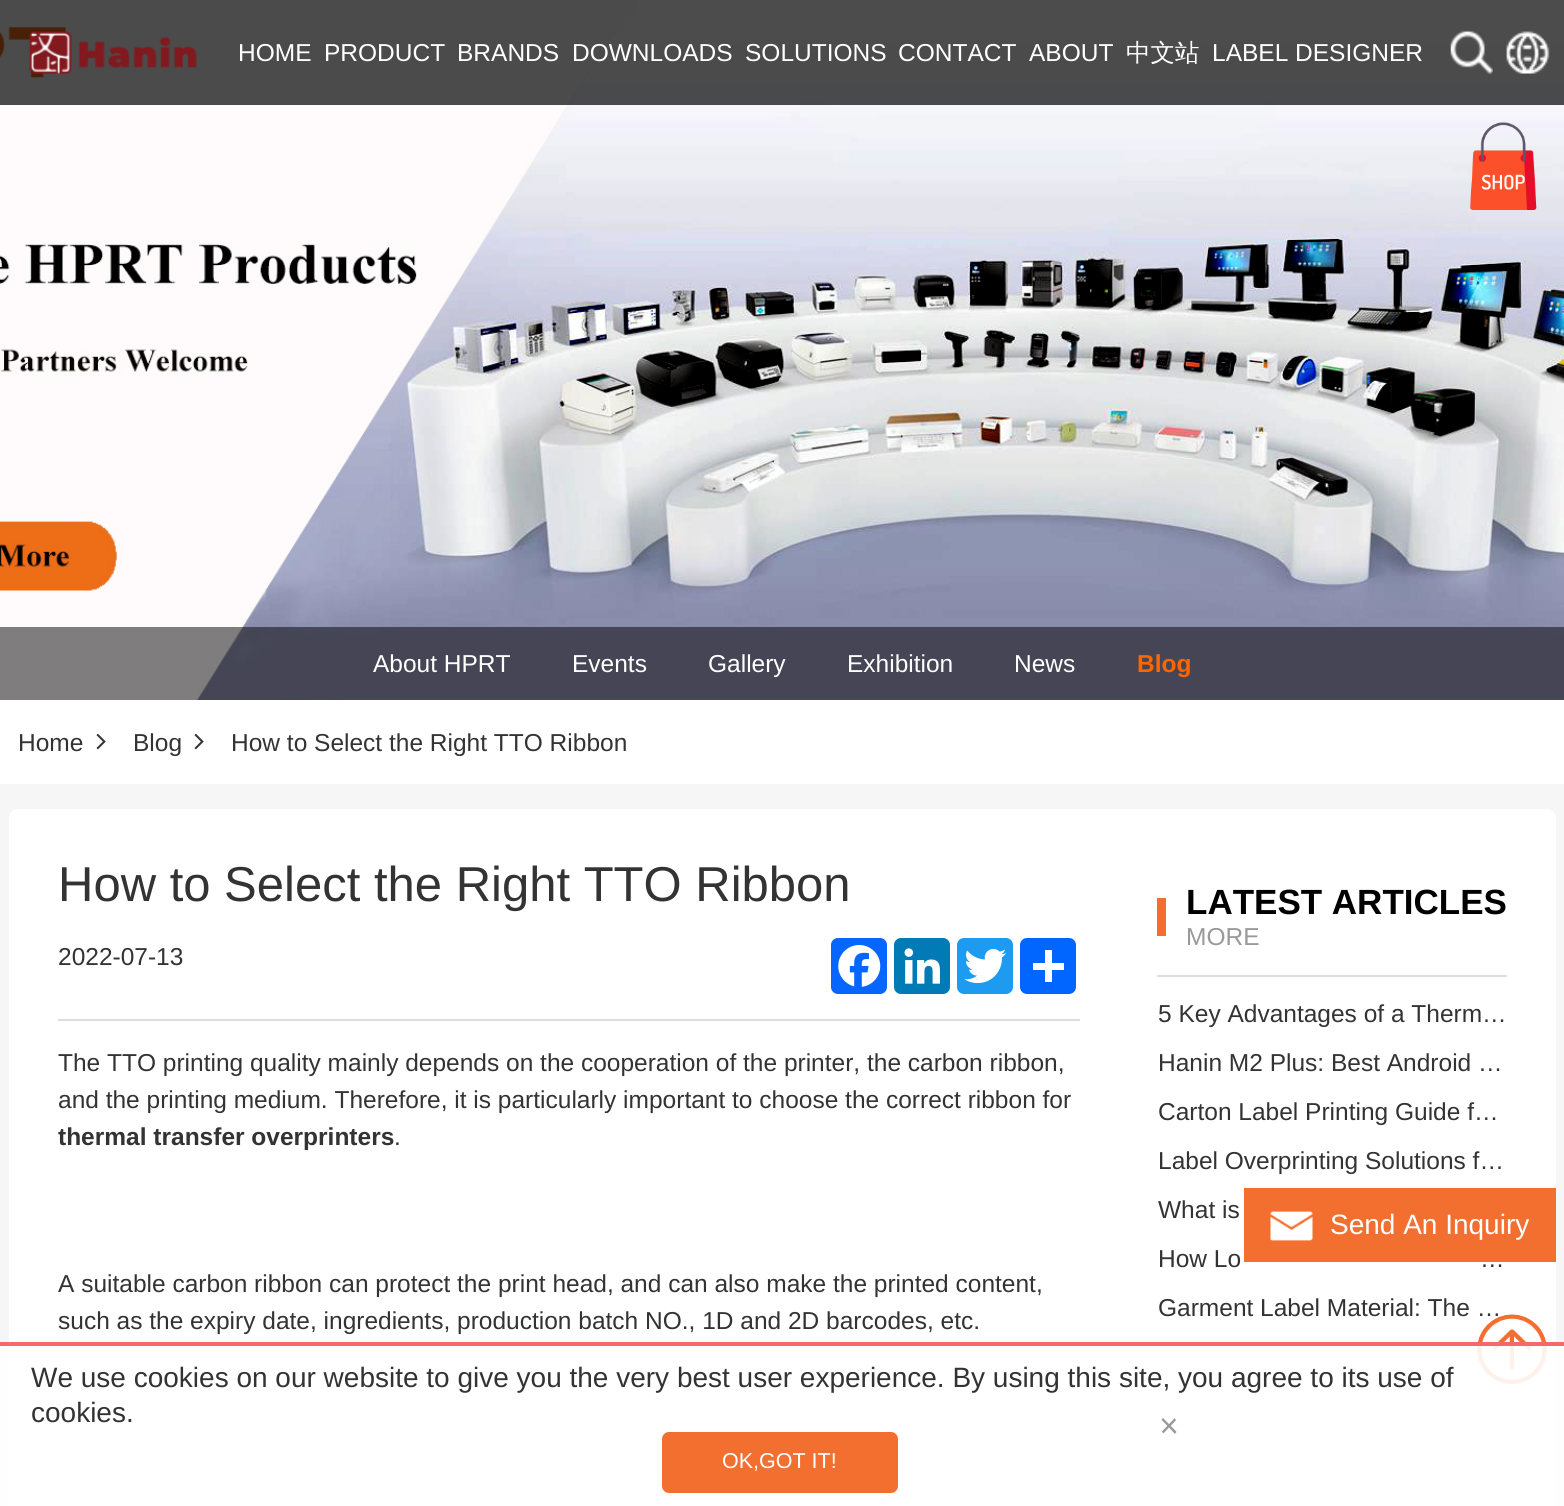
import math
import cairo


def round_path(ctx, x, y, w, h, r):
	ctx.new_sub_path()
	for i, (u, v) in enumerate([(x + w - r, y + h - r), (x + r, y + h - r), (x + r, y + r), (x + w - r, y + r)]):
		ctx.arc(u, v, r, i * math.pi / 2, (i + 1) * math.pi / 2)
	ctx.close_path()

def paste(ctx, path, x, y, w, h):
	ctx.save()
	ctx.set_source_surface(cairo.ImageSurface.create_from_png(path), x, y)
	ctx.rectangle(x, y, w, h)
	ctx.fill()
	ctx.restore()

def draw(ctx):
	ctx.set_source_rgb(1, 1, 1)
	ctx.paint()
	paste(ctx, 'media/5.png', 0, 0, 1564, 700)
	ctx.set_source_rgba(0, 0, 0, 0.7)
	ctx.rectangle(0, 0, 1564, 105)
	ctx.fill()
	paste(ctx, 'media/1.png', 29, 31, 168, 43)
	ctx.select_font_face('Liberation Sans')
	ctx.set_font_size(24.5)
	ctx.set_source_rgb(1, 1, 1)
	for x, y, s in [
		(238, 61, 'HOME'),
		(324, 61, 'PRODUCT'),
		(457, 61, 'BRANDS'),
		(572, 61, 'DOWNLOADS'),
		(745, 61, 'SOLUTIONS'),
		(898, 61, 'CONTACT'),
		(1029, 61, 'ABOUT'),
	]:
		ctx.move_to(x, y)
		ctx.show_text(s)
	ctx.select_font_face('WenQuanYi Zen Hei Medium')
	ctx.move_to(1126, 61)
	ctx.show_text('中文站')
	ctx.select_font_face('Liberation Sans')
	ctx.move_to(1212, 61)
	ctx.show_text('LABEL DESIGNER')
	paste(ctx, 'media/2.png', 1450, 30, 43, 44)
	paste(ctx, 'media/3.png', 1506, 31, 44, 43)
	paste(ctx, 'media/4.png', 1469, 122, 68, 88)
	ctx.set_source_rgba(0, 0, 0, 0.5)
	ctx.rectangle(0, 627, 1564, 73)
	ctx.fill()
	ctx.set_source_rgb(1, 1, 1)
	for x, y, s in [
		(373, 672, 'About HPRT'),
		(572, 672, 'Events'),
		(708, 672, 'Gallery'),
		(847, 672, 'Exhibition'),
		(1014, 672, 'News'),
	]:
		ctx.move_to(x, y)
		ctx.show_text(s)
	ctx.select_font_face('Liberation Sans', cairo.FONT_SLANT_NORMAL, cairo.FONT_WEIGHT_BOLD)
	ctx.set_source_rgb(1, 0.4, 0)
	ctx.move_to(1137, 672)
	ctx.show_text('Blog')
	ctx.select_font_face('Liberation Sans')
	ctx.set_source_rgb(0.2, 0.2, 0.2)
	ctx.move_to(18, 751)
	ctx.show_text('Home')
	paste(ctx, 'media/6.png', 96, 733, 10, 17)
	ctx.move_to(133, 751)
	ctx.show_text('Blog')
	paste(ctx, 'media/6.png', 194, 733, 10, 17)
	ctx.move_to(231, 751)
	ctx.show_text('How to Select the Right TTO Ribbon')
	ctx.set_source_rgb(0.961, 0.961, 0.961)
	ctx.rectangle(0, 784, 1564, 722)
	ctx.fill()
	ctx.set_source_rgb(1, 1, 1)
	round_path(ctx, 9, 809, 1547, 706, 9)
	ctx.fill()
	ctx.set_font_size(49)
	ctx.set_source_rgb(0.2, 0.2, 0.2)
	ctx.move_to(58, 901)
	ctx.show_text('How to Select the Right TTO Ribbon')
	ctx.set_source_rgb(0.867, 0.867, 0.867)
	ctx.rectangle(58, 1019, 1022, 2)
	ctx.fill()
	ctx.set_font_size(24.5)
	ctx.set_source_rgb(0.2, 0.2, 0.2)
	ctx.move_to(58, 965)
	ctx.show_text('2022-07-13')
	ctx.set_source_rgb(0.031, 0.4, 1)
	round_path(ctx, 831, 938, 56, 56, 7)
	ctx.fill()
	paste(ctx, 'media/7.png', 838, 945, 43, 42)
	ctx.set_source_rgb(0, 0.482, 0.71)
	round_path(ctx, 894, 938, 56, 56, 7)
	ctx.fill()
	paste(ctx, 'media/8.png', 904, 948, 36, 36)
	ctx.set_source_rgb(0.114, 0.608, 0.941)
	round_path(ctx, 957, 938, 56, 56, 7)
	ctx.fill()
	paste(ctx, 'media/9.png', 964, 948, 43, 36)
	ctx.set_source_rgb(0.004, 0.4, 1)
	round_path(ctx, 1020, 938, 56, 56, 7)
	ctx.fill()
	ctx.set_source_rgb(1, 1, 1)
	ctx.rectangle(1045, 950, 7, 32)
	ctx.fill()
	ctx.rectangle(1033, 963, 31, 7)
	ctx.fill()
	ctx.set_source_rgb(0.2, 0.2, 0.2)
	ctx.move_to(58, 1071)
	ctx.show_text('The TTO printing quality mainly depends on the cooperation of the printer, the carbon ribbon,')
	ctx.move_to(58, 1108)
	ctx.show_text('and the printing medium. Therefore, it is particularly important to choose the correct ribbon for')
	ctx.select_font_face('Liberation Sans', cairo.FONT_SLANT_NORMAL, cairo.FONT_WEIGHT_BOLD)
	ctx.move_to(58, 1145)
	ctx.show_text('thermal transfer overprinters')
	ctx.select_font_face('Liberation Sans')
	for x, y, s in [
		(394, 1145, '.'),
		(58, 1292, 'A suitable carbon ribbon can protect the print head, and can also make the printed content,'),
		(58, 1329, 'such as the expiry date, ingredients, production batch NO., 1D and 2D barcodes, etc.'),
	]:
		ctx.move_to(x, y)
		ctx.show_text(s)
	ctx.set_source_rgb(0.867, 0.867, 0.867)
	ctx.rectangle(1157, 975, 350, 2)
	ctx.fill()
	ctx.set_source_rgb(0.953, 0.435, 0.184)
	ctx.rectangle(1157, 898, 9, 38)
	ctx.fill()
	ctx.select_font_face('Liberation Sans', cairo.FONT_SLANT_NORMAL, cairo.FONT_WEIGHT_BOLD)
	ctx.set_font_size(35)
	ctx.set_source_rgb(0, 0, 0)
	ctx.move_to(1186, 914)
	ctx.show_text('LATEST ARTICLES')
	ctx.select_font_face('Liberation Sans')
	ctx.set_font_size(24.5)
	ctx.set_source_rgb(0.6, 0.6, 0.6)
	ctx.move_to(1186, 945)
	ctx.show_text('MORE')
	ctx.set_source_rgb(0.2, 0.2, 0.2)
	for x, y, s in [
		(1158, 1022, '5 Key Advantages of a Therm…'),
		(1158, 1071, 'Hanin M2 Plus: Best Android …'),
		(1158, 1120, 'Carton Label Printing Guide f…'),
		(1158, 1169, 'Label Overprinting Solutions f…'),
		(1158, 1218, 'What is'),
		(1158, 1267, 'How Lo'),
		(1480, 1267, '…'),
		(1158, 1316, 'Garment Label Material: The …'),
	]:
		ctx.move_to(x, y)
		ctx.show_text(s)
	ctx.set_source_rgb(0.953, 0.435, 0.184)
	ctx.rectangle(1244, 1188, 312, 74)
	ctx.fill()
	paste(ctx, 'media/10.png', 1270, 1211, 43, 30)
	ctx.set_font_size(28)
	ctx.set_source_rgb(1, 1, 1)
	ctx.move_to(1330, 1234)
	ctx.show_text('Send An Inquiry')
	paste(ctx, 'media/11.png', 1477, 1314, 70, 71)
	ctx.set_source_rgba(1, 1, 1, 0.9)
	ctx.rectangle(0, 1346, 1564, 160)
	ctx.fill()
	ctx.set_source_rgb(0.961, 0.412, 0.412)
	ctx.rectangle(0, 1342, 1564, 4)
	ctx.fill()
	ctx.set_source_rgb(0.2, 0.2, 0.2)
	ctx.move_to(31, 1387)
	ctx.show_text('We use cookies on our website to give you the very best user experience. By using this site, you agree to its use of')
	ctx.move_to(31, 1422)
	ctx.show_text('cookies.')
	paste(ctx, 'media/12.png', 1161, 1418, 16, 16)
	ctx.set_source_rgb(0.953, 0.435, 0.184)
	round_path(ctx, 662, 1432, 236, 61, 7)
	ctx.fill()
	ctx.set_font_size(21.5)
	ctx.set_source_rgb(1, 1, 1)
	ctx.move_to(722, 1468)
	ctx.show_text('OK,GOT IT!')


surface = cairo.ImageSurface(cairo.FORMAT_RGB24, 1564, 1506)
ctx = cairo.Context(surface)
options = cairo.FontOptions()
options.set_hint_metrics(cairo.HINT_METRICS_OFF)
options.set_hint_style(cairo.HINT_STYLE_NONE)
ctx.set_font_options(options)
ctx.set_miter_limit(4)
draw(ctx)
surface.write_to_png('image.png')
